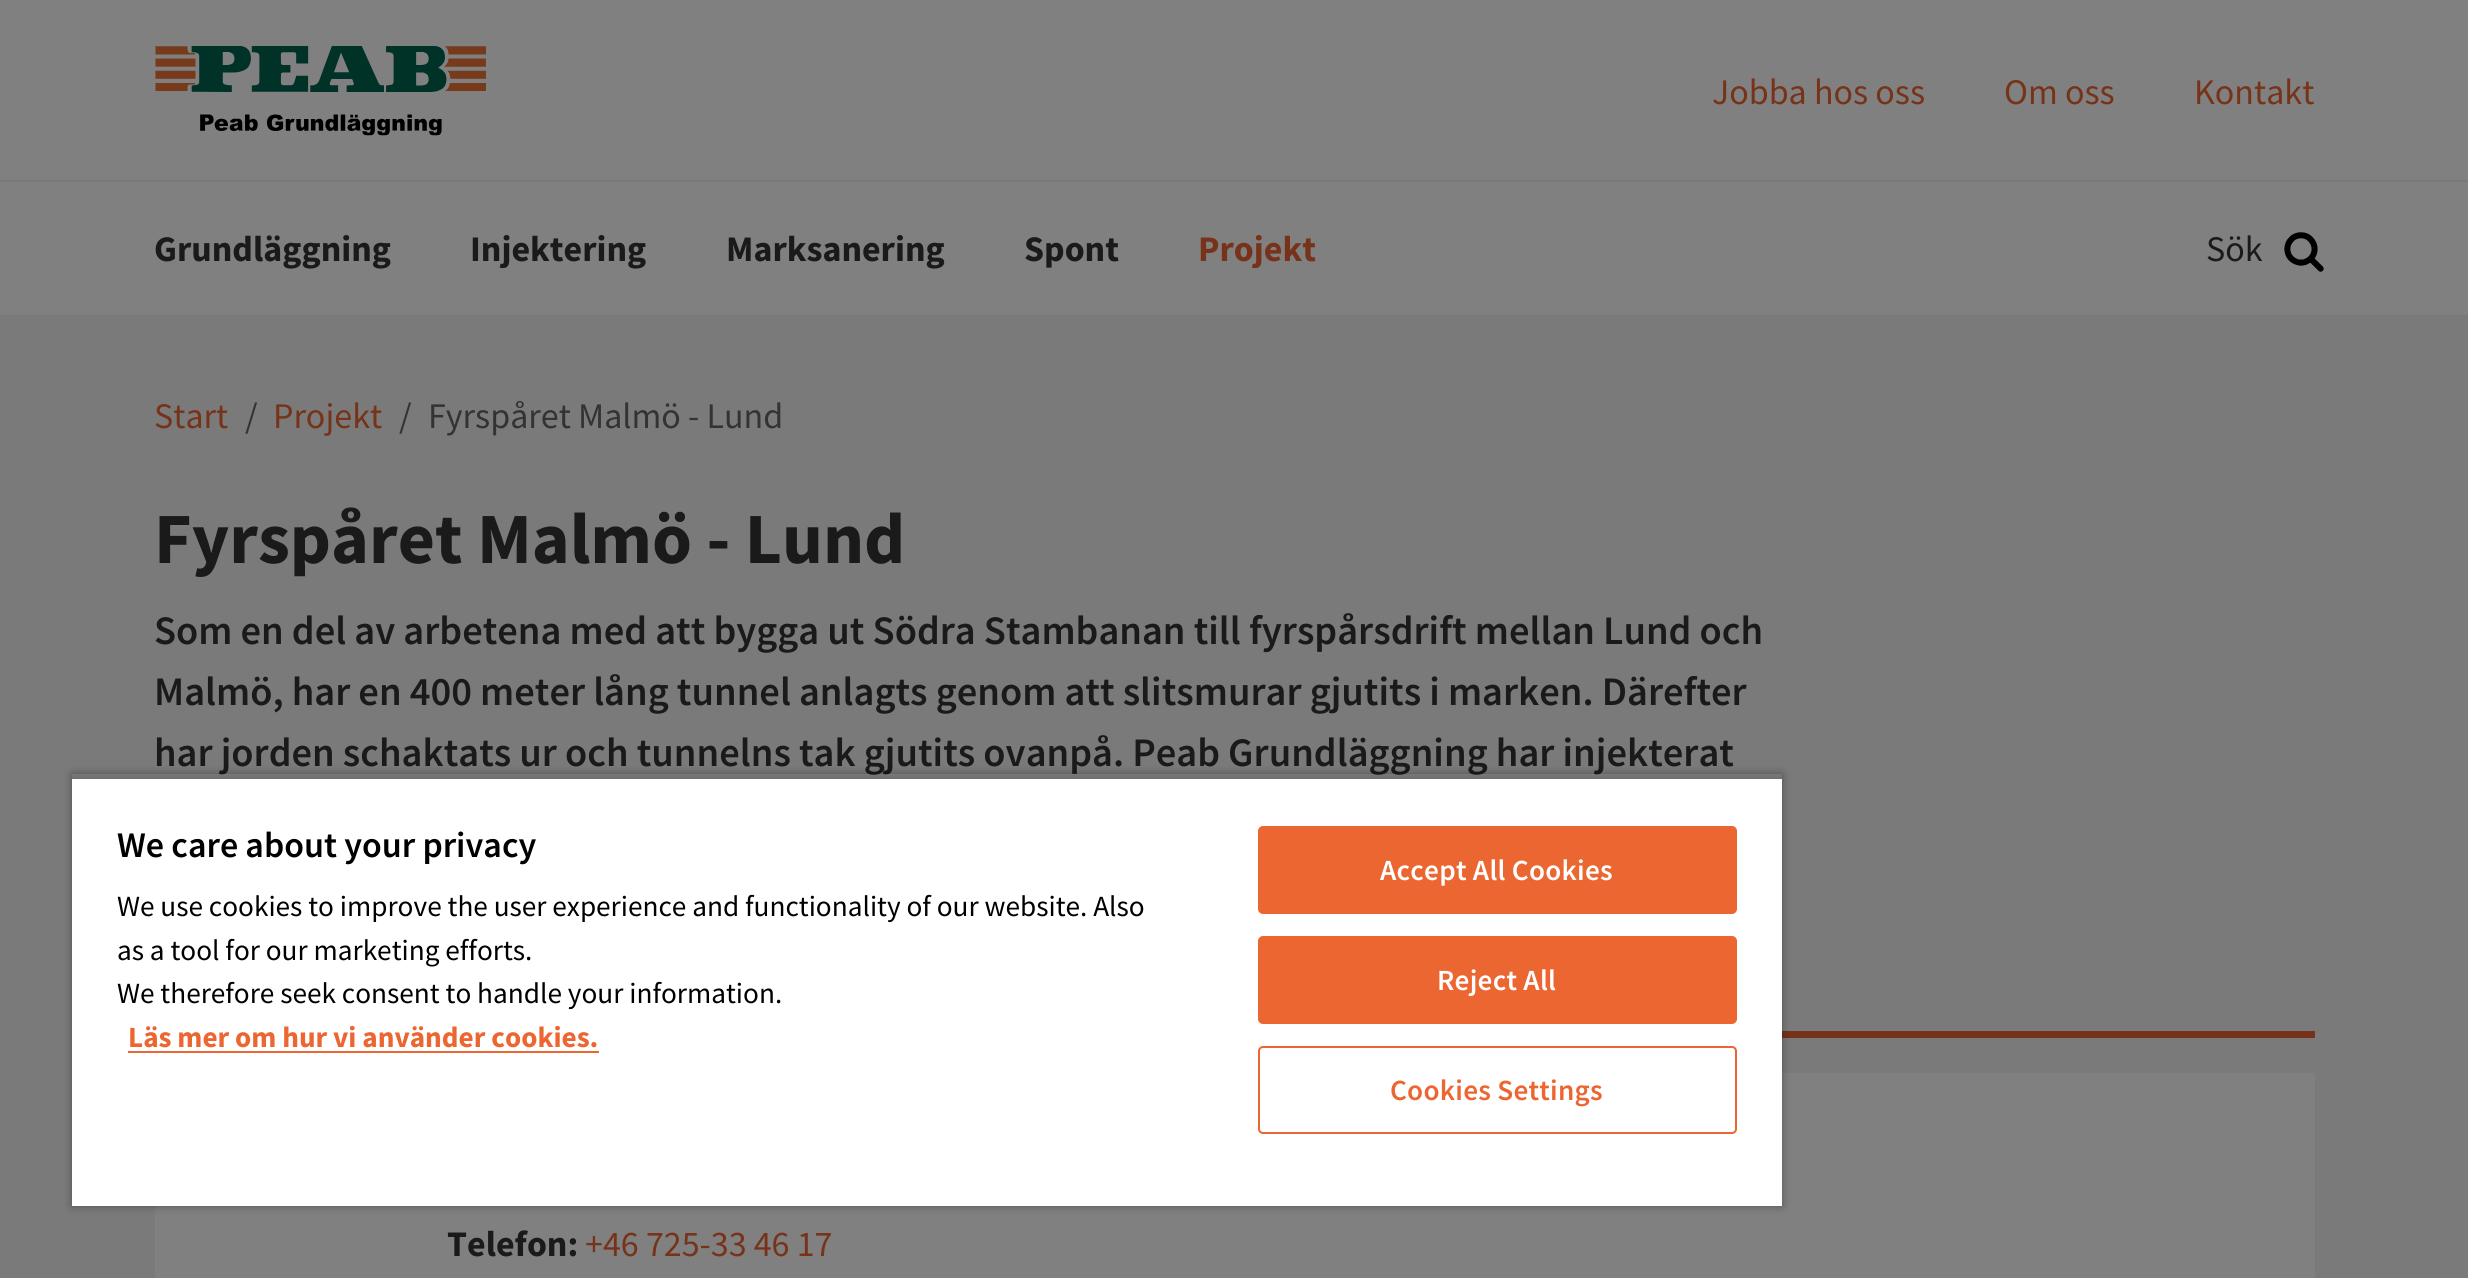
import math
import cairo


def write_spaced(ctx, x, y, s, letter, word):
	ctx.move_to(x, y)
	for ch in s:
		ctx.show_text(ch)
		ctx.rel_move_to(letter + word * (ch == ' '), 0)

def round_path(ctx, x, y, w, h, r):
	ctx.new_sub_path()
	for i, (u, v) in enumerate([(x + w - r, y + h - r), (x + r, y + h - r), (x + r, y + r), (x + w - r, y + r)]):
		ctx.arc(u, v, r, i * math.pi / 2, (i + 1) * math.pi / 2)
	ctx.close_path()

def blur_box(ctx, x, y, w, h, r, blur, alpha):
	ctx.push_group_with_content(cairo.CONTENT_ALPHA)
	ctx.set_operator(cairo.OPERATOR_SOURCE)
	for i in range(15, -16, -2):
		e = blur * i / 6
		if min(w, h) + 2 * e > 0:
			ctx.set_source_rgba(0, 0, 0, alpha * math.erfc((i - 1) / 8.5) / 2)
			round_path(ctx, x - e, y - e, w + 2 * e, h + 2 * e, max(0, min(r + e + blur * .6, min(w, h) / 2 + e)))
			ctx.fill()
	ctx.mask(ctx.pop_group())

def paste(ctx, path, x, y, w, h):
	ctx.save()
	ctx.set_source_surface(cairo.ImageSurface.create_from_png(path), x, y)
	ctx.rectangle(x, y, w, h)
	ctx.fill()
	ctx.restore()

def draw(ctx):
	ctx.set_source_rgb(0.478, 0.478, 0.478)
	ctx.paint()
	ctx.set_source_rgb(0.502, 0.502, 0.502)
	ctx.rectangle(0, 0, 2468, 315)
	ctx.fill()
	paste(ctx, 'media/1.png', 155, 46, 331, 90)
	ctx.select_font_face('Source Sans Pro')
	ctx.set_font_size(36)
	ctx.set_source_rgb(0.463, 0.2, 0.098)
	for x, y, s in [
		(1712, 104, 'Jobba hos oss'),
		(2004, 104, 'Om oss'),
		(2194, 104, 'Kontakt'),
	]:
		ctx.move_to(x, y)
		ctx.show_text(s)
	ctx.set_source_rgb(0.478, 0.478, 0.478)
	ctx.rectangle(0, 180, 2468, 2)
	ctx.fill()
	ctx.select_font_face('Source Sans Pro', cairo.FONT_SLANT_NORMAL, cairo.FONT_WEIGHT_BOLD)
	ctx.set_source_rgb(0.102, 0.102, 0.102)
	for x, y, s in [
		(154, 261, 'Grundläggning'),
		(470, 261, 'Injektering'),
		(726, 261, 'Marksanering'),
		(1024, 261, 'Spont'),
	]:
		ctx.move_to(x, y)
		ctx.show_text(s)
	ctx.set_source_rgb(0.463, 0.2, 0.098)
	ctx.move_to(1198, 261)
	ctx.show_text('Projekt')
	ctx.select_font_face('Source Sans Pro')
	ctx.set_source_rgb(0.102, 0.102, 0.102)
	ctx.move_to(2206, 261)
	ctx.show_text('Sök')
	paste(ctx, 'media/2.png', 2284, 232, 40, 40)
	ctx.set_source_rgb(0.463, 0.2, 0.098)
	ctx.move_to(154, 428)
	ctx.show_text('Start')
	ctx.set_source_rgb(0.2, 0.2, 0.2)
	ctx.move_to(245, 428)
	ctx.show_text('/')
	ctx.set_source_rgb(0.463, 0.2, 0.098)
	ctx.move_to(273, 428)
	ctx.show_text('Projekt')
	ctx.set_source_rgb(0.2, 0.2, 0.2)
	ctx.move_to(399, 428)
	ctx.show_text('/')
	ctx.move_to(428, 428)
	ctx.show_text('Fyrspåret Malmö - Lund')
	ctx.select_font_face('Source Sans Pro', cairo.FONT_SLANT_NORMAL, cairo.FONT_WEIGHT_BOLD)
	ctx.set_font_size(72)
	ctx.set_source_rgb(0.102, 0.102, 0.102)
	ctx.move_to(154, 563)
	ctx.show_text('Fyrspåret Malmö - Lund')
	ctx.select_font_face('Source Sans Pro SemiBold')
	ctx.set_font_size(40.5)
	for x, y, s in [
		(154, 644, 'Som en del av arbetena med att bygga ut Södra Stambanan till fyrspårsdrift mellan Lund och'),
		(154, 705, 'Malmö, har en 400 meter lång tunnel anlagts genom att slitsmurar gjutits i marken. Därefter'),
		(154, 766, 'har jorden schaktats ur och tunnelns tak gjutits ovanpå. Peab Grundläggning har injekterat'),
	]:
		ctx.move_to(x, y)
		ctx.show_text(s)
	ctx.set_source_rgb(0.463, 0.2, 0.098)
	ctx.rectangle(1782, 1031, 533, 7)
	ctx.fill()
	ctx.set_source_rgb(0.502, 0.502, 0.502)
	ctx.rectangle(155, 1073, 2160, 205)
	ctx.fill()
	ctx.select_font_face('Source Sans Pro', cairo.FONT_SLANT_NORMAL, cairo.FONT_WEIGHT_BOLD)
	ctx.set_font_size(36)
	ctx.set_source_rgb(0.102, 0.102, 0.102)
	ctx.move_to(447, 1256)
	ctx.show_text('Telefon:')
	ctx.select_font_face('Source Sans Pro')
	ctx.set_source_rgb(0.463, 0.2, 0.098)
	ctx.move_to(585, 1256)
	ctx.show_text('+46 725-33 46 17')
	ctx.save()
	ctx.set_fill_rule(cairo.FILL_RULE_EVEN_ODD)
	ctx.new_path()
	ctx.move_to(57, 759)
	ctx.line_to(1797, 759)
	ctx.line_to(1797, 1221)
	ctx.line_to(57, 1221)
	ctx.close_path()
	ctx.move_to(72, 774)
	ctx.line_to(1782, 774)
	ctx.line_to(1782, 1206)
	ctx.line_to(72, 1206)
	ctx.close_path()
	ctx.clip()
	ctx.set_source_rgb(0, 0, 0)
	blur_box(ctx, 72, 774, 1710, 432, 0, 4.5, 0.35)
	ctx.restore()
	ctx.save()
	ctx.rectangle(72, 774, 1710, 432)
	ctx.clip()
	ctx.set_source_rgb(0, 0, 0)
	blur_box(ctx, 72, 779, 1710, 427, 0, 4.5, 0.2)
	ctx.restore()
	ctx.set_source_rgb(1, 1, 1)
	ctx.rectangle(72, 779, 1710, 427)
	ctx.fill()
	ctx.select_font_face('Source Sans Pro SemiBold')
	ctx.set_source_rgb(0, 0, 0)
	ctx.move_to(117, 857)
	ctx.show_text('We care about your privacy')
	ctx.select_font_face('Source Sans Pro')
	ctx.set_font_size(29.25)
	for x, y, s in [
		(117, 916, 'We use cookies to improve the user experience and functionality of our website. Also'),
		(117, 960, 'as a tool for our marketing efforts.'),
		(117, 1003, 'We therefore seek consent to handle your information.'),
	]:
		ctx.move_to(x, y)
		ctx.show_text(s)
	ctx.select_font_face('Source Sans Pro', cairo.FONT_SLANT_NORMAL, cairo.FONT_WEIGHT_BOLD)
	ctx.set_source_rgb(0.922, 0.4, 0.192)
	ctx.move_to(128, 1047)
	ctx.show_text('Läs mer om hur vi använder cookies.')
	ctx.rectangle(128, 1051, 471, 2)
	ctx.fill()
	round_path(ctx, 1259, 827, 477, 86, 4)
	ctx.fill_preserve()
	ctx.stroke()
	ctx.select_font_face('Source Sans Pro SemiBold')
	ctx.set_source_rgb(1, 1, 1)
	write_spaced(ctx, 1380, 880, 'Accept All Cookies', 0.25, 0)
	ctx.set_source_rgb(0.922, 0.4, 0.192)
	round_path(ctx, 1259, 937, 477, 86, 4)
	ctx.fill_preserve()
	ctx.stroke()
	ctx.set_source_rgb(1, 1, 1)
	write_spaced(ctx, 1437, 990, 'Reject All', 0.25, 0)
	round_path(ctx, 1259, 1047, 477, 86, 4)
	ctx.set_source_rgb(0.922, 0.4, 0.192)
	ctx.stroke()
	write_spaced(ctx, 1390, 1100, 'Cookies Settings', 0.25, 0)


surface = cairo.ImageSurface(cairo.FORMAT_RGB24, 2468, 1278)
ctx = cairo.Context(surface)
options = cairo.FontOptions()
options.set_hint_metrics(cairo.HINT_METRICS_OFF)
options.set_hint_style(cairo.HINT_STYLE_NONE)
ctx.set_font_options(options)
ctx.set_miter_limit(4)
draw(ctx)
surface.write_to_png('image.png')
